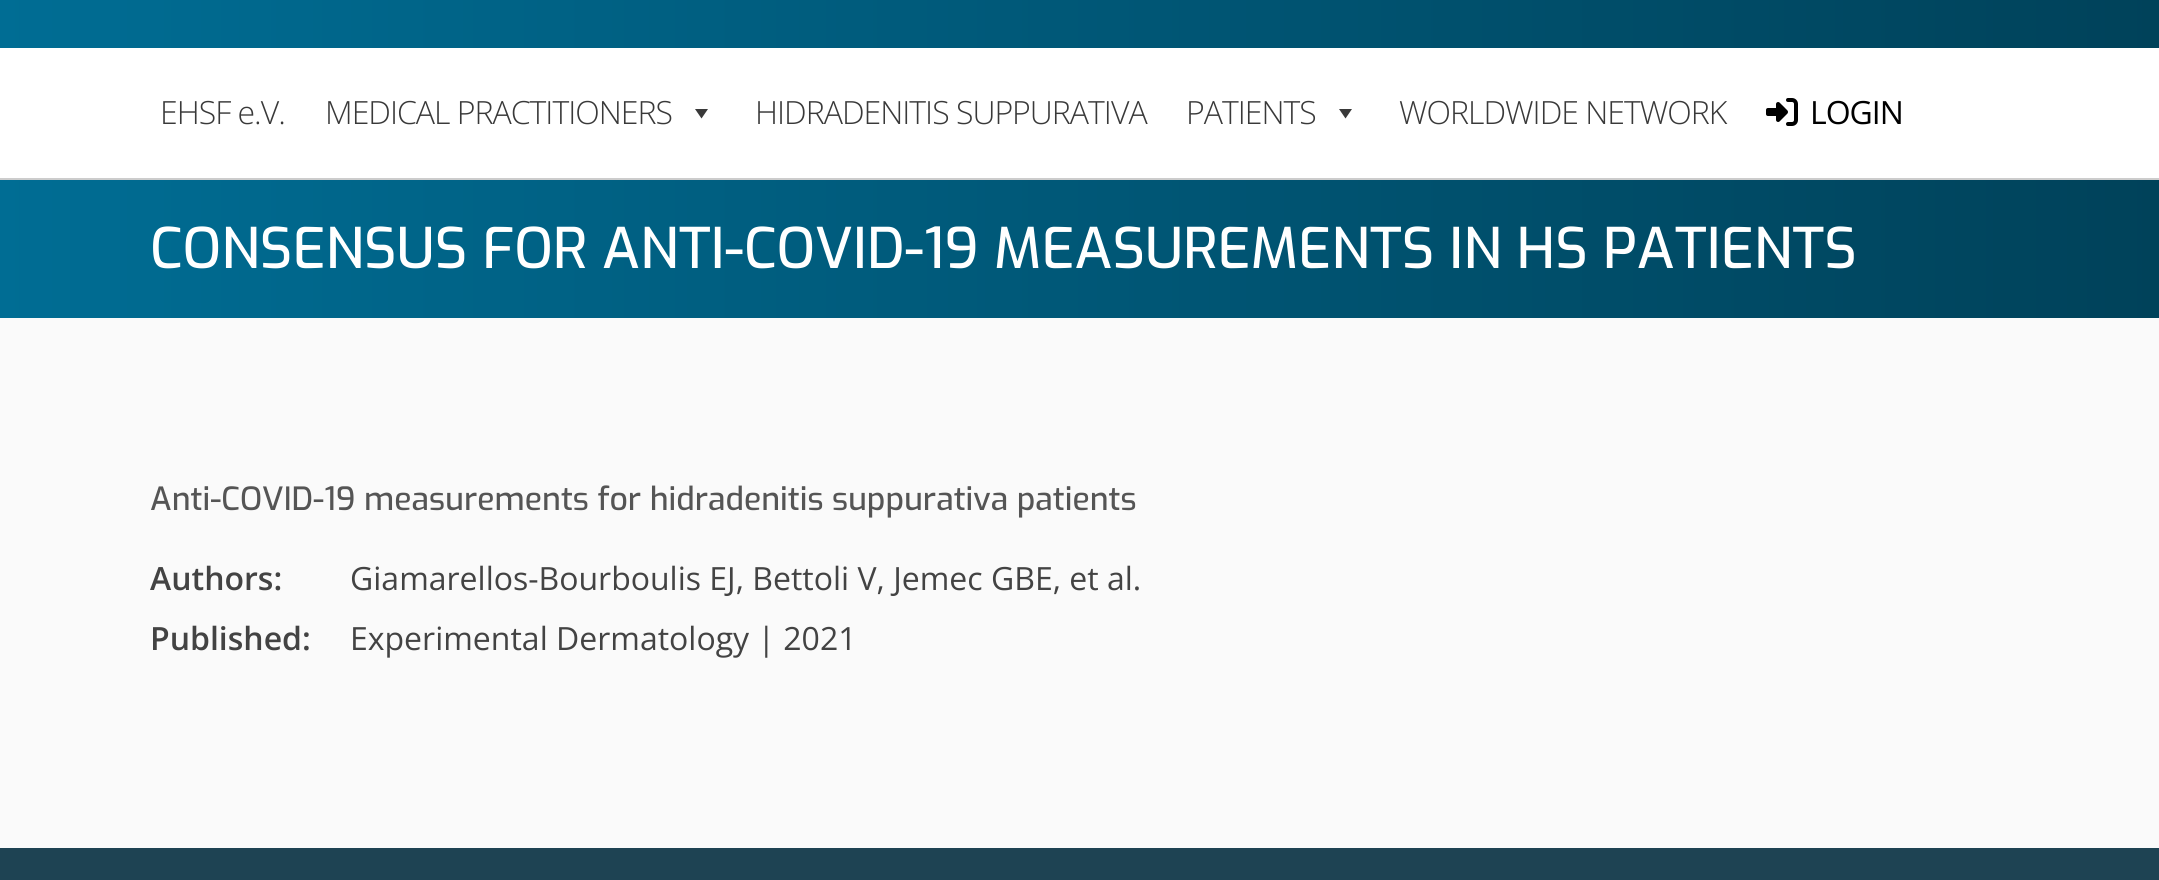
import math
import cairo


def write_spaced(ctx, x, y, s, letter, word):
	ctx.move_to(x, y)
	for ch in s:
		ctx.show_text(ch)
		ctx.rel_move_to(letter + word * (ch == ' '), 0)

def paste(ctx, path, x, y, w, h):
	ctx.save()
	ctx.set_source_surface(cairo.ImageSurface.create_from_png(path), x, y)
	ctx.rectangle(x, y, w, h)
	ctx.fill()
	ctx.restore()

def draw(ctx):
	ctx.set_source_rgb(0.98, 0.98, 0.98)
	ctx.paint()
	gradient = cairo.LinearGradient(0, 159, 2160, 159)
	gradient.add_color_stop_rgba(0, 0, 0.427, 0.58, 1)
	gradient.add_color_stop_rgba(1, 0, 0.259, 0.353, 1)
	ctx.set_source(gradient)
	ctx.rectangle(0, 0, 2159, 318)
	ctx.fill()
	ctx.set_source_rgb(1, 1, 1)
	ctx.rectangle(0, 48, 2159, 130)
	ctx.fill()
	ctx.set_source_rgb(0.8, 0.8, 0.8)
	ctx.rectangle(0, 178, 2159, 2)
	ctx.fill()
	ctx.select_font_face('Open Sans Light')
	ctx.set_font_size(32)
	ctx.set_source_rgb(0.224, 0.224, 0.224)
	write_spaced(ctx, 160, 124, 'EHSF e.V.', -1, 0)
	write_spaced(ctx, 325, 124, 'MEDICAL PRACTITIONERS', -1, 0)
	ctx.new_path()
	ctx.move_to(708, 109)
	ctx.line_to(701.5, 118.5)
	ctx.line_to(695, 109)
	ctx.close_path()
	ctx.fill()
	write_spaced(ctx, 755, 124, 'HIDRADENITIS SUPPURATIVA', -1, 0)
	write_spaced(ctx, 1186, 124, 'PATIENTS', -1, 0)
	ctx.new_path()
	ctx.move_to(1352, 109)
	ctx.line_to(1345.5, 118.5)
	ctx.line_to(1339, 109)
	ctx.close_path()
	ctx.fill()
	write_spaced(ctx, 1399, 124, 'WORLDWIDE NETWORK', -1, 0)
	paste(ctx, 'media/1.png', 1766, 98, 32, 28)
	ctx.select_font_face('Open Sans')
	ctx.set_source_rgb(0, 0, 0)
	write_spaced(ctx, 1810, 124, 'LOGIN', -1, 0)
	ctx.select_font_face('Exo Medium')
	ctx.set_font_size(56)
	ctx.set_source_rgb(1, 1, 1)
	ctx.move_to(150, 268)
	ctx.show_text('CONSENSUS FOR ANTI-COVID-19 MEASUREMENTS IN HS PATIENTS')
	ctx.set_font_size(32)
	ctx.set_source_rgb(0.333, 0.333, 0.333)
	ctx.move_to(150, 510)
	ctx.show_text('Anti-COVID-19 measurements for hidradenitis suppurativa patients')
	ctx.select_font_face('Open Sans SemiBold')
	ctx.set_source_rgb(0.263, 0.263, 0.263)
	ctx.move_to(150, 590)
	ctx.show_text('Authors:')
	ctx.select_font_face('Open Sans')
	ctx.move_to(350, 590)
	ctx.show_text('Giamarellos-Bourboulis EJ, Bettoli V, Jemec GBE, et al.')
	ctx.select_font_face('Open Sans SemiBold')
	ctx.move_to(150, 650)
	ctx.show_text('Published:')
	ctx.select_font_face('Open Sans')
	ctx.move_to(350, 650)
	ctx.show_text('Experimental Dermatology | 2021')
	ctx.set_source_rgb(0.118, 0.263, 0.325)
	ctx.rectangle(0, 848, 2159, 32)
	ctx.fill()


surface = cairo.ImageSurface(cairo.FORMAT_RGB24, 2159, 880)
ctx = cairo.Context(surface)
options = cairo.FontOptions()
options.set_hint_metrics(cairo.HINT_METRICS_OFF)
options.set_hint_style(cairo.HINT_STYLE_NONE)
ctx.set_font_options(options)
ctx.set_miter_limit(4)
draw(ctx)
surface.write_to_png('image.png')
